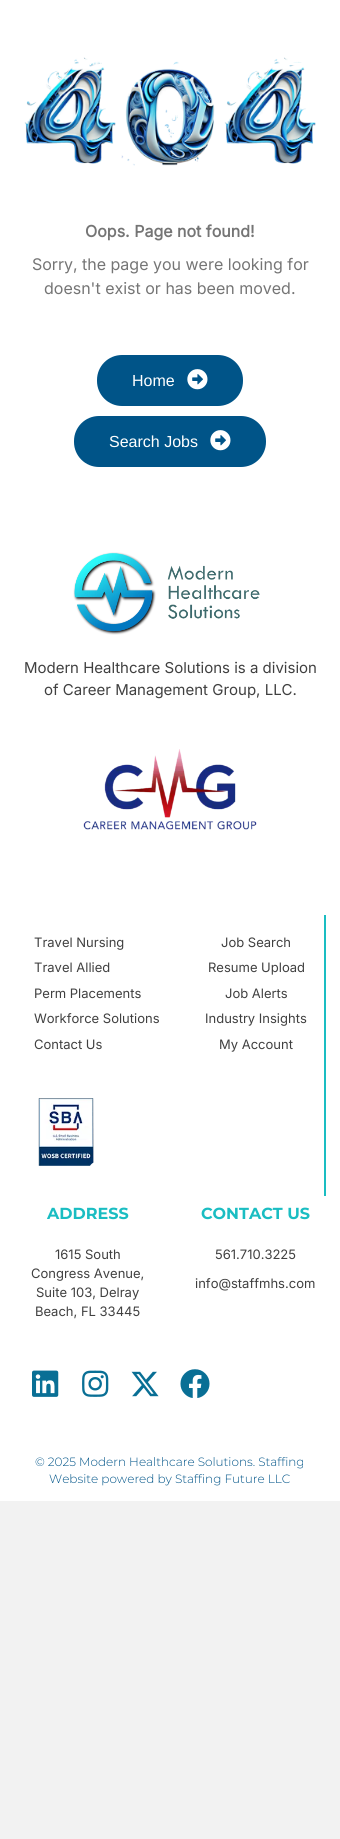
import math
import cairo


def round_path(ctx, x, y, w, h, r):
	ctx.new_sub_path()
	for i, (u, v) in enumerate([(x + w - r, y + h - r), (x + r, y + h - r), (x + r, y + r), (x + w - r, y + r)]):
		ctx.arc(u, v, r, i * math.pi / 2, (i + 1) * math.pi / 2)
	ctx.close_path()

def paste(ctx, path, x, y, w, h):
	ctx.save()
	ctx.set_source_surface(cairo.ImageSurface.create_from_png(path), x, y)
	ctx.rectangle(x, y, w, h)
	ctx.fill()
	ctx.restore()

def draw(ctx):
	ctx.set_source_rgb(0.949, 0.949, 0.949)
	ctx.paint()
	ctx.set_source_rgb(1, 1, 1)
	ctx.rectangle(0, 0, 340, 1501)
	ctx.fill()
	paste(ctx, 'media/2.png', 24, 57, 292, 109)
	paste(ctx, 'media/1.png', 74, 59, 27, 6)
	round_path(ctx, 282, 63, 30, 2, 1)
	ctx.fill()
	ctx.select_font_face('Inter', cairo.FONT_SLANT_NORMAL, cairo.FONT_WEIGHT_BOLD)
	ctx.set_font_size(16)
	ctx.set_source_rgb(0.459, 0.459, 0.459)
	ctx.move_to(85, 237)
	ctx.show_text('Oops. Page not found!')
	ctx.select_font_face('Inter')
	ctx.move_to(32, 270)
	ctx.show_text('Sorry, the page you were looking for')
	ctx.move_to(44, 294)
	ctx.show_text('doesn\'t exist or has been moved.')
	ctx.set_source_rgb(0, 0.329, 0.533)
	round_path(ctx, 97, 355, 146, 51, 25)
	ctx.fill()
	ctx.select_font_face('Liberation Sans')
	ctx.set_source_rgb(1, 1, 1)
	ctx.move_to(132, 386)
	ctx.show_text('Home')
	paste(ctx, 'media/3.png', 187, 369, 21, 21)
	ctx.set_source_rgb(0, 0.329, 0.533)
	round_path(ctx, 74, 416, 192, 51, 25)
	ctx.fill()
	ctx.set_source_rgb(1, 1, 1)
	ctx.move_to(109, 447)
	ctx.show_text('Search Jobs')
	paste(ctx, 'media/3.png', 210, 430, 21, 21)
	paste(ctx, 'media/4.png', 73, 552, 187, 83)
	ctx.select_font_face('Inter')
	ctx.set_font_size(15)
	ctx.set_source_rgb(0.251, 0.251, 0.251)
	ctx.move_to(24, 673)
	ctx.show_text('Modern Healthcare Solutions is a division')
	ctx.move_to(44, 695)
	ctx.show_text('of Career Management Group, LLC.')
	paste(ctx, 'media/5.png', 83, 749, 174, 81)
	ctx.set_font_size(13)
	for x, y, s in [
		(34, 947, 'Travel Nursing'),
		(34, 972, 'Travel Allied'),
		(34, 998, 'Perm Placements'),
		(34, 1023, 'Workforce Solutions'),
		(34, 1049, 'Contact Us'),
	]:
		ctx.move_to(x, y)
		ctx.show_text(s)
	paste(ctx, 'media/6.png', 38, 1098, 56, 68)
	ctx.set_source_rgb(0.102, 0.741, 0.761)
	ctx.rectangle(324, 915, 2, 281)
	ctx.fill()
	ctx.set_source_rgb(0.251, 0.251, 0.251)
	for x, y, s in [
		(221, 947, 'Job Search'),
		(208, 972, 'Resume Upload'),
		(225, 998, 'Job Alerts'),
		(205, 1023, 'Industry Insights'),
		(219, 1049, 'My Account'),
	]:
		ctx.move_to(x, y)
		ctx.show_text(s)
	ctx.select_font_face('Montserrat', cairo.FONT_SLANT_NORMAL, cairo.FONT_WEIGHT_BOLD)
	ctx.set_font_size(16)
	ctx.set_source_rgb(0.102, 0.741, 0.761)
	ctx.move_to(47, 1219)
	ctx.show_text('ADDRESS')
	ctx.select_font_face('Inter')
	ctx.set_font_size(13)
	ctx.set_source_rgb(0.251, 0.251, 0.251)
	for x, y, s in [
		(55, 1259, '1615 South'),
		(31, 1278, 'Congress Avenue,'),
		(36, 1297, 'Suite 103, Delray'),
		(35, 1316, 'Beach, FL 33445'),
	]:
		ctx.move_to(x, y)
		ctx.show_text(s)
	paste(ctx, 'media/7.png', 32, 1370, 27, 27)
	paste(ctx, 'media/8.png', 82, 1370, 27, 27)
	paste(ctx, 'media/9.png', 131, 1371, 28, 26)
	paste(ctx, 'media/10.png', 180, 1369, 30, 29)
	ctx.select_font_face('Montserrat', cairo.FONT_SLANT_NORMAL, cairo.FONT_WEIGHT_BOLD)
	ctx.set_font_size(16)
	ctx.set_source_rgb(0.102, 0.741, 0.761)
	ctx.move_to(201, 1219)
	ctx.show_text('CONTACT US')
	ctx.select_font_face('Inter')
	ctx.set_font_size(13)
	ctx.set_source_rgb(0.251, 0.251, 0.251)
	ctx.move_to(215, 1259)
	ctx.show_text('561.710.3225')
	ctx.move_to(195, 1288)
	ctx.show_text('info@staffmhs.com')
	ctx.select_font_face('Montserrat Light')
	ctx.set_font_size(12)
	ctx.set_source_rgb(0, 0.329, 0.533)
	ctx.move_to(35, 1466)
	ctx.show_text('© 2025 Modern Healthcare Solutions. Staffing')
	ctx.move_to(49, 1483)
	ctx.show_text('Website powered by Staffing Future LLC')


surface = cairo.ImageSurface(cairo.FORMAT_RGB24, 340, 1839)
ctx = cairo.Context(surface)
options = cairo.FontOptions()
options.set_hint_metrics(cairo.HINT_METRICS_OFF)
options.set_hint_style(cairo.HINT_STYLE_NONE)
ctx.set_font_options(options)
ctx.set_miter_limit(4)
draw(ctx)
surface.write_to_png('image.png')
